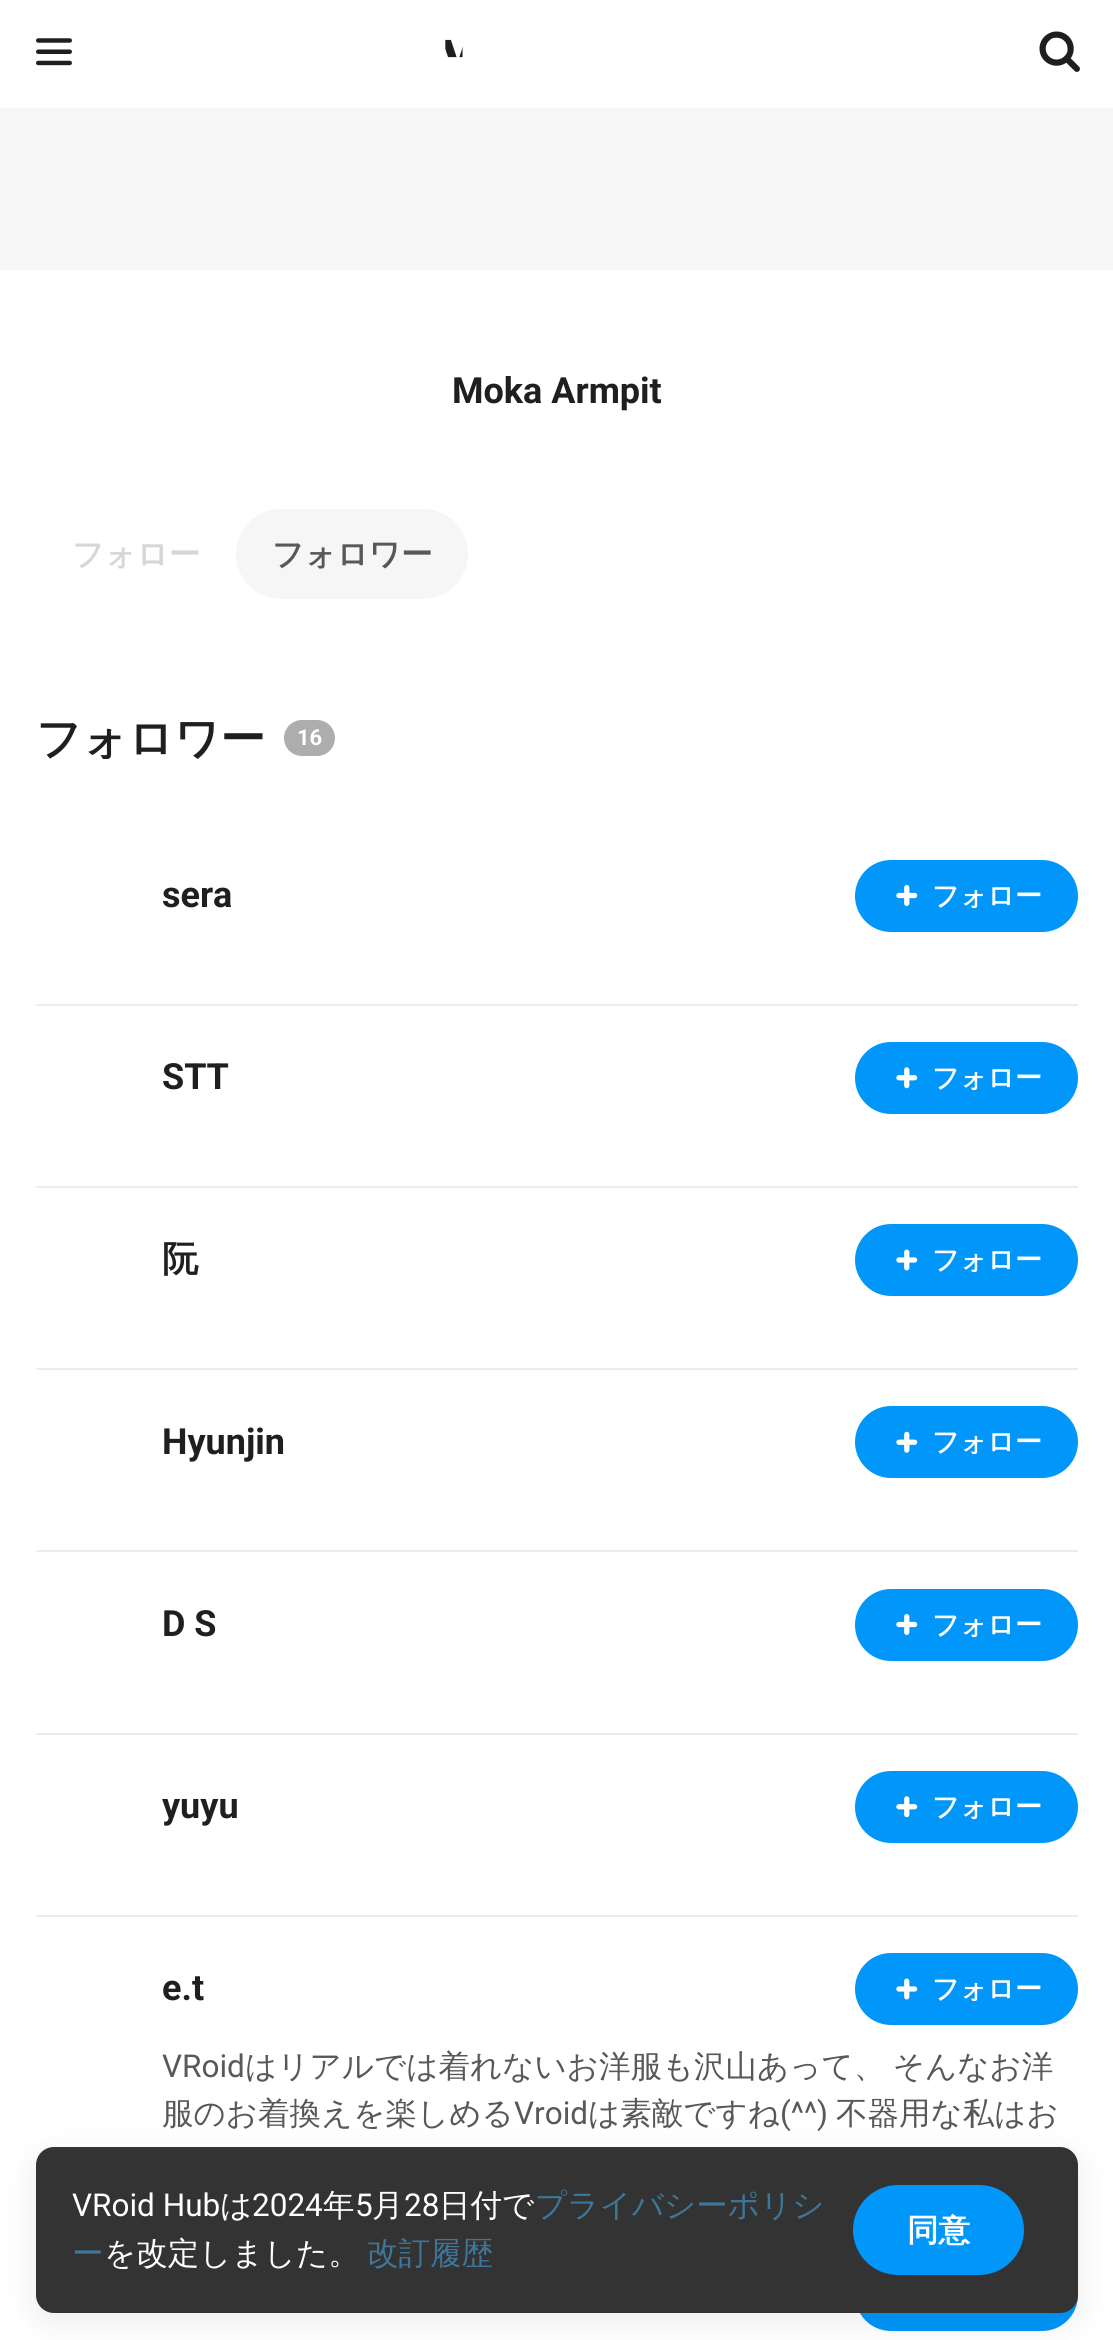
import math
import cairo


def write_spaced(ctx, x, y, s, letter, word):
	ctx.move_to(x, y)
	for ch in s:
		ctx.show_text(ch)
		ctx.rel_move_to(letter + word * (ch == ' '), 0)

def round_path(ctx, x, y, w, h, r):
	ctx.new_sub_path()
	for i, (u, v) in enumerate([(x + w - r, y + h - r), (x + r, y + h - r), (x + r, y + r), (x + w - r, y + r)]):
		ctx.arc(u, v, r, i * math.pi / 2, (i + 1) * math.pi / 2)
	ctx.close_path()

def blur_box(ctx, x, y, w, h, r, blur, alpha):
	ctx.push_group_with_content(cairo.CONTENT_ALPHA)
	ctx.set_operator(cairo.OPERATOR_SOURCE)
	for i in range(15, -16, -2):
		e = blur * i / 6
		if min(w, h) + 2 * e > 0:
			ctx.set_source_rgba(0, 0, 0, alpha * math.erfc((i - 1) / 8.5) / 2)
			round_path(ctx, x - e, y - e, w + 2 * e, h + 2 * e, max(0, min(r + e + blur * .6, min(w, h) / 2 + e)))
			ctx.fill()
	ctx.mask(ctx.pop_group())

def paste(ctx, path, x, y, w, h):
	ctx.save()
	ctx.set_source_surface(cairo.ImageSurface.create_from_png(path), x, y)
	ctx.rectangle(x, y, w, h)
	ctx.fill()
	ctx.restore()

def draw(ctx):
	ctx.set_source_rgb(1, 1, 1)
	ctx.paint()
	paste(ctx, 'media/1.png', 36, 38, 36, 28)
	paste(ctx, 'media/2.png', 445, 39, 18, 19)
	paste(ctx, 'media/3.png', 1039, 31, 41, 41)
	ctx.set_source_rgb(0.961, 0.961, 0.961)
	ctx.rectangle(0, 108, 1113, 162)
	ctx.fill()
	ctx.select_font_face('Roboto', cairo.FONT_SLANT_NORMAL, cairo.FONT_WEIGHT_BOLD)
	ctx.set_font_size(36)
	ctx.set_source_rgb(0.122, 0.122, 0.122)
	ctx.move_to(452, 403)
	ctx.show_text('Moka Armpit')
	ctx.select_font_face('WenQuanYi Zen Hei', cairo.FONT_SLANT_NORMAL, cairo.FONT_WEIGHT_BOLD)
	ctx.set_font_size(31.5)
	ctx.set_source_rgb(0.839, 0.839, 0.839)
	ctx.move_to(72, 565)
	ctx.show_text('フォロー')
	ctx.set_source_rgb(0.961, 0.961, 0.961)
	round_path(ctx, 236, 509, 232, 90, 45)
	ctx.fill()
	ctx.set_source_rgb(0.345, 0.345, 0.345)
	ctx.move_to(272, 565)
	ctx.show_text('フォロワー')
	ctx.set_font_size(45)
	ctx.set_source_rgb(0.122, 0.122, 0.122)
	ctx.move_to(36, 754)
	ctx.show_text('フォロワー')
	ctx.set_source_rgb(0.678, 0.678, 0.678)
	round_path(ctx, 284, 720, 51, 36, 18)
	ctx.fill()
	ctx.select_font_face('Roboto', cairo.FONT_SLANT_NORMAL, cairo.FONT_WEIGHT_BOLD)
	ctx.set_font_size(22)
	ctx.set_source_rgb(1, 1, 1)
	ctx.move_to(297, 745)
	ctx.show_text('16')
	ctx.set_source_rgb(0.922, 0.922, 0.922)
	ctx.rectangle(36, 1004, 1042, 2)
	ctx.fill()
	ctx.set_font_size(36)
	ctx.set_source_rgb(0.122, 0.122, 0.122)
	ctx.move_to(162, 907)
	ctx.show_text('sera')
	ctx.set_source_rgb(0, 0.588, 0.98)
	round_path(ctx, 855, 860, 223, 72, 36)
	ctx.fill()
	paste(ctx, 'media/4.png', 896, 885, 22, 21)
	ctx.select_font_face('WenQuanYi Zen Hei', cairo.FONT_SLANT_NORMAL, cairo.FONT_WEIGHT_BOLD)
	ctx.set_font_size(27)
	ctx.set_source_rgb(1, 1, 1)
	ctx.move_to(932, 905)
	ctx.show_text('フォロー')
	ctx.set_source_rgb(0.922, 0.922, 0.922)
	ctx.rectangle(36, 1186, 1042, 2)
	ctx.fill()
	ctx.select_font_face('Roboto', cairo.FONT_SLANT_NORMAL, cairo.FONT_WEIGHT_BOLD)
	ctx.set_font_size(36)
	ctx.set_source_rgb(0.122, 0.122, 0.122)
	ctx.move_to(162, 1089)
	ctx.show_text('STT')
	ctx.set_source_rgb(0, 0.588, 0.98)
	round_path(ctx, 855, 1042, 223, 72, 36)
	ctx.fill()
	paste(ctx, 'media/5.png', 896, 1067, 22, 22)
	ctx.select_font_face('WenQuanYi Zen Hei', cairo.FONT_SLANT_NORMAL, cairo.FONT_WEIGHT_BOLD)
	ctx.set_font_size(27)
	ctx.set_source_rgb(1, 1, 1)
	ctx.move_to(932, 1087)
	ctx.show_text('フォロー')
	ctx.set_source_rgb(0.922, 0.922, 0.922)
	ctx.rectangle(36, 1368, 1042, 2)
	ctx.fill()
	ctx.set_font_size(36)
	ctx.set_source_rgb(0.122, 0.122, 0.122)
	ctx.move_to(162, 1271)
	ctx.show_text('阮')
	ctx.set_source_rgb(0, 0.588, 0.98)
	round_path(ctx, 855, 1224, 223, 72, 36)
	ctx.fill()
	paste(ctx, 'media/6.png', 896, 1249, 22, 22)
	ctx.set_font_size(27)
	ctx.set_source_rgb(1, 1, 1)
	ctx.move_to(932, 1269)
	ctx.show_text('フォロー')
	ctx.set_source_rgb(0.922, 0.922, 0.922)
	ctx.rectangle(36, 1550, 1042, 2)
	ctx.fill()
	ctx.select_font_face('Roboto', cairo.FONT_SLANT_NORMAL, cairo.FONT_WEIGHT_BOLD)
	ctx.set_font_size(36)
	ctx.set_source_rgb(0.122, 0.122, 0.122)
	ctx.move_to(162, 1454)
	ctx.show_text('Hyunjin')
	ctx.set_source_rgb(0, 0.588, 0.98)
	round_path(ctx, 855, 1406, 223, 72, 36)
	ctx.fill()
	paste(ctx, 'media/7.png', 896, 1431, 22, 22)
	ctx.select_font_face('WenQuanYi Zen Hei', cairo.FONT_SLANT_NORMAL, cairo.FONT_WEIGHT_BOLD)
	ctx.set_font_size(27)
	ctx.set_source_rgb(1, 1, 1)
	ctx.move_to(932, 1451)
	ctx.show_text('フォロー')
	ctx.set_source_rgb(0.922, 0.922, 0.922)
	ctx.rectangle(36, 1733, 1042, 2)
	ctx.fill()
	ctx.select_font_face('Roboto', cairo.FONT_SLANT_NORMAL, cairo.FONT_WEIGHT_BOLD)
	ctx.set_font_size(36)
	ctx.set_source_rgb(0.122, 0.122, 0.122)
	ctx.move_to(162, 1636)
	ctx.show_text('D S')
	ctx.set_source_rgb(0, 0.588, 0.98)
	round_path(ctx, 855, 1589, 223, 72, 36)
	ctx.fill()
	paste(ctx, 'media/4.png', 896, 1614, 22, 21)
	ctx.select_font_face('WenQuanYi Zen Hei', cairo.FONT_SLANT_NORMAL, cairo.FONT_WEIGHT_BOLD)
	ctx.set_font_size(27)
	ctx.set_source_rgb(1, 1, 1)
	ctx.move_to(932, 1634)
	ctx.show_text('フォロー')
	ctx.set_source_rgb(0.922, 0.922, 0.922)
	ctx.rectangle(36, 1915, 1042, 2)
	ctx.fill()
	ctx.select_font_face('Roboto', cairo.FONT_SLANT_NORMAL, cairo.FONT_WEIGHT_BOLD)
	ctx.set_font_size(36)
	ctx.set_source_rgb(0.122, 0.122, 0.122)
	ctx.move_to(162, 1818)
	ctx.show_text('yuyu')
	ctx.set_source_rgb(0, 0.588, 0.98)
	round_path(ctx, 855, 1771, 223, 72, 36)
	ctx.fill()
	paste(ctx, 'media/5.png', 896, 1796, 22, 22)
	ctx.select_font_face('WenQuanYi Zen Hei', cairo.FONT_SLANT_NORMAL, cairo.FONT_WEIGHT_BOLD)
	ctx.set_font_size(27)
	ctx.set_source_rgb(1, 1, 1)
	ctx.move_to(932, 1816)
	ctx.show_text('フォロー')
	ctx.select_font_face('Roboto', cairo.FONT_SLANT_NORMAL, cairo.FONT_WEIGHT_BOLD)
	ctx.set_font_size(36)
	ctx.set_source_rgb(0.122, 0.122, 0.122)
	ctx.move_to(162, 2000)
	ctx.show_text('e.t')
	ctx.set_source_rgb(0, 0.588, 0.98)
	round_path(ctx, 855, 1953, 223, 72, 36)
	ctx.fill()
	paste(ctx, 'media/6.png', 896, 1978, 22, 22)
	ctx.select_font_face('WenQuanYi Zen Hei', cairo.FONT_SLANT_NORMAL, cairo.FONT_WEIGHT_BOLD)
	ctx.set_font_size(27)
	ctx.set_source_rgb(1, 1, 1)
	ctx.move_to(932, 1998)
	ctx.show_text('フォロー')
	ctx.select_font_face('Roboto')
	ctx.set_font_size(31.5)
	ctx.set_source_rgb(0.345, 0.345, 0.345)
	ctx.move_to(162, 2077)
	ctx.show_text('VRoid')
	ctx.select_font_face('WenQuanYi Zen Hei Medium')
	write_spaced(ctx, 245, 2077, 'はリアルでは着れないお洋服も沢山あって、 そんなお洋', 0, -2)
	ctx.move_to(162, 2124)
	ctx.show_text('服のお着換えを楽しめる')
	ctx.select_font_face('Roboto')
	ctx.move_to(514, 2124)
	ctx.show_text('Vroid')
	ctx.select_font_face('WenQuanYi Zen Hei Medium')
	ctx.move_to(588, 2124)
	ctx.show_text('は素敵ですね')
	ctx.select_font_face('Roboto')
	ctx.move_to(780, 2124)
	ctx.show_text('(^^)')
	ctx.select_font_face('WenQuanYi Zen Hei Medium')
	ctx.move_to(836, 2124)
	ctx.show_text('不器用な私はお')
	ctx.set_source_rgb(0, 0.588, 0.98)
	round_path(ctx, 855, 2259, 223, 72, 36)
	ctx.fill()
	ctx.set_source_rgb(0, 0, 0)
	blur_box(ctx, 36, 2156, 1042, 166, 18, 18, 0.08)
	ctx.set_source_rgb(0.2, 0.2, 0.2)
	round_path(ctx, 36, 2147, 1042, 166, 18)
	ctx.fill()
	ctx.select_font_face('Roboto')
	ctx.set_source_rgb(1, 1, 1)
	ctx.move_to(72, 2216)
	ctx.show_text('VRoid Hub')
	ctx.select_font_face('WenQuanYi Zen Hei Medium')
	ctx.move_to(220, 2216)
	ctx.show_text('は')
	ctx.select_font_face('Roboto')
	ctx.move_to(252, 2216)
	ctx.show_text('2024')
	ctx.select_font_face('WenQuanYi Zen Hei Medium')
	ctx.move_to(323, 2216)
	ctx.show_text('年')
	ctx.select_font_face('Roboto')
	ctx.move_to(355, 2216)
	ctx.show_text('5')
	ctx.select_font_face('WenQuanYi Zen Hei Medium')
	ctx.move_to(372, 2216)
	ctx.show_text('月')
	ctx.select_font_face('Roboto')
	ctx.move_to(404, 2216)
	ctx.show_text('28')
	ctx.select_font_face('WenQuanYi Zen Hei Medium')
	ctx.move_to(439, 2216)
	ctx.show_text('日付で')
	ctx.set_source_rgb(0.239, 0.463, 0.6)
	ctx.move_to(535, 2216)
	ctx.show_text('プライバシーポリシ')
	ctx.move_to(72, 2264)
	ctx.show_text('ー')
	ctx.set_source_rgb(1, 1, 1)
	ctx.move_to(104, 2264)
	ctx.show_text('を改定しました。')
	ctx.set_source_rgb(0.239, 0.463, 0.6)
	ctx.move_to(367, 2264)
	ctx.show_text('改訂履歴')
	ctx.set_source_rgb(0, 0.588, 0.98)
	round_path(ctx, 853, 2185, 171, 90, 45)
	ctx.fill()
	ctx.select_font_face('WenQuanYi Zen Hei', cairo.FONT_SLANT_NORMAL, cairo.FONT_WEIGHT_BOLD)
	ctx.set_source_rgb(1, 1, 1)
	ctx.move_to(907, 2241)
	ctx.show_text('同意')


surface = cairo.ImageSurface(cairo.FORMAT_RGB24, 1113, 2340)
ctx = cairo.Context(surface)
options = cairo.FontOptions()
options.set_hint_metrics(cairo.HINT_METRICS_OFF)
options.set_hint_style(cairo.HINT_STYLE_NONE)
ctx.set_font_options(options)
ctx.set_miter_limit(4)
draw(ctx)
surface.write_to_png('image.png')
